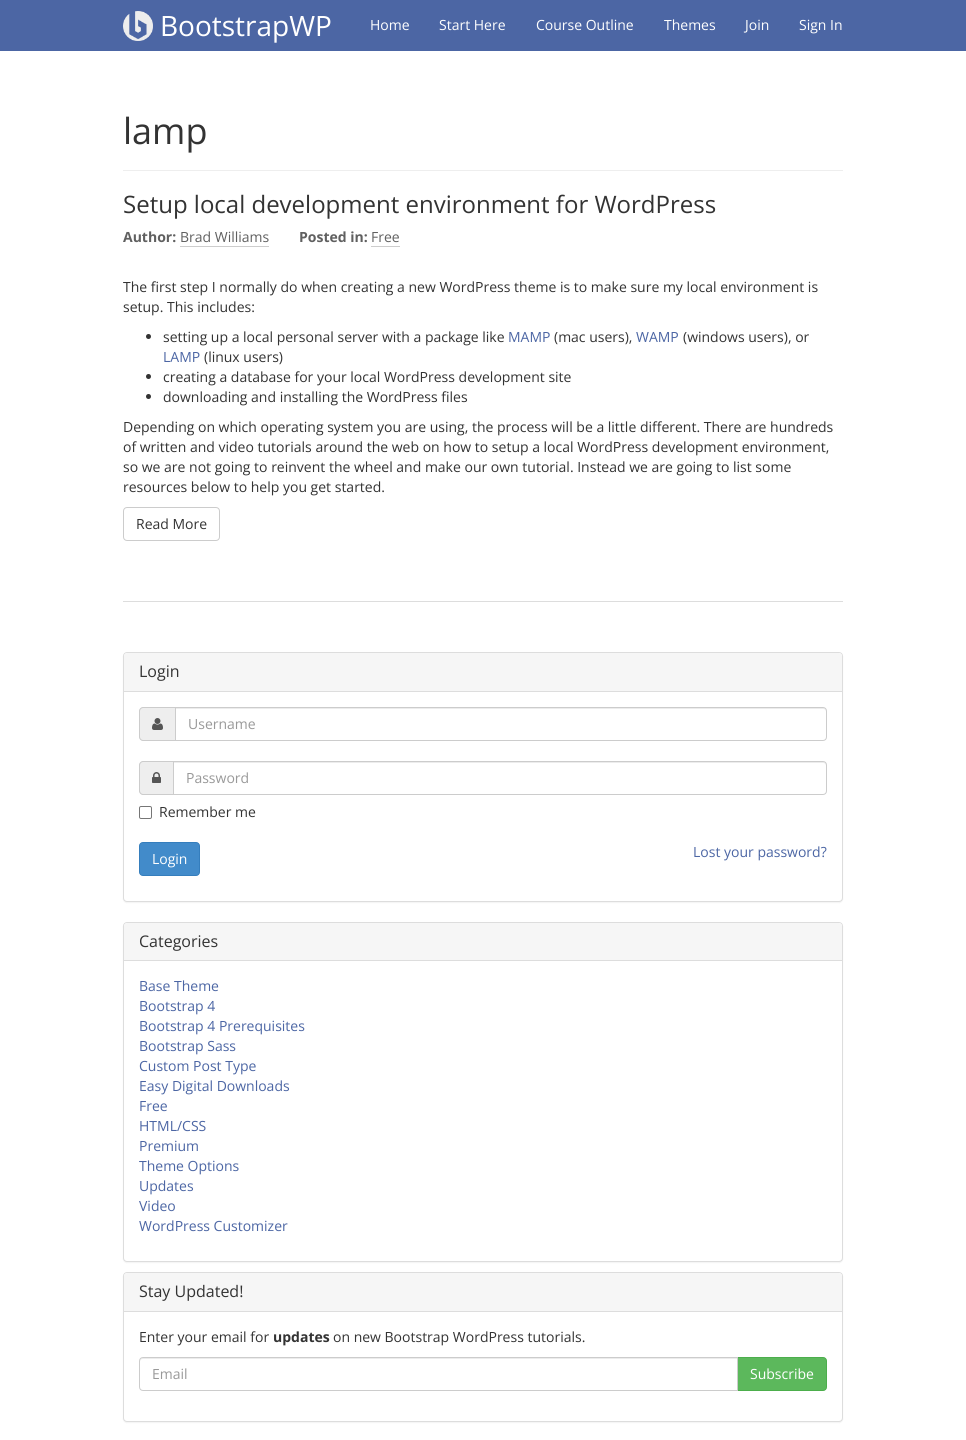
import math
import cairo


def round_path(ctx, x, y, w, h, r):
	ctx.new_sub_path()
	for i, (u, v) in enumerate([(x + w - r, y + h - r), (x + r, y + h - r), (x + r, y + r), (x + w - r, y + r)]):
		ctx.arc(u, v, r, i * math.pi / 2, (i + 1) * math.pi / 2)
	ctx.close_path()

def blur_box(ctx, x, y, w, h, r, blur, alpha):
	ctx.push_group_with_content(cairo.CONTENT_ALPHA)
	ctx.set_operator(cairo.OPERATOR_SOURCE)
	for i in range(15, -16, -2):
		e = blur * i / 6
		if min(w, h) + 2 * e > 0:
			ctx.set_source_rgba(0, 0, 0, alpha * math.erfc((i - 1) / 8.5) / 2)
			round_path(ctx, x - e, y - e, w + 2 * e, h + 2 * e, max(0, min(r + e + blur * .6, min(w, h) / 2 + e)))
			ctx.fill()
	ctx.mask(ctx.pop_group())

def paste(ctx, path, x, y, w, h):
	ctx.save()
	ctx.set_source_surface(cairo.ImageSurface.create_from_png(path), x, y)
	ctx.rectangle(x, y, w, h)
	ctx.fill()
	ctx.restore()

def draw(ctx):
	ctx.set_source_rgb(1, 1, 1)
	ctx.paint()
	ctx.set_source_rgb(0.298, 0.4, 0.643)
	ctx.rectangle(0, 0, 966, 51)
	ctx.fill()
	paste(ctx, 'media/1.png', 123, 11, 30, 30)
	ctx.select_font_face('Open Sans')
	ctx.set_font_size(28)
	ctx.set_source_rgb(1, 1, 1)
	ctx.move_to(160, 36)
	ctx.show_text('BootstrapWP')
	ctx.set_font_size(14)
	for x, y, s in [
		(370, 30, 'Home'),
		(439, 30, 'Start Here'),
		(536, 30, 'Course Outline'),
		(664, 30, 'Themes'),
		(745, 30, 'Join'),
		(799, 30, 'Sign In'),
	]:
		ctx.move_to(x, y)
		ctx.show_text(s)
	ctx.set_source_rgb(0.933, 0.933, 0.933)
	ctx.rectangle(123, 170, 720, 1)
	ctx.fill()
	ctx.set_font_size(36)
	ctx.set_source_rgb(0.2, 0.2, 0.2)
	ctx.move_to(123, 144)
	ctx.show_text('lamp')
	ctx.set_source_rgb(0.867, 0.867, 0.867)
	ctx.rectangle(123, 601, 720, 1)
	ctx.fill()
	ctx.set_font_size(24)
	ctx.set_source_rgb(0.2, 0.2, 0.2)
	ctx.move_to(123, 213)
	ctx.show_text('Setup local development environment for WordPress')
	ctx.select_font_face('Open Sans', cairo.FONT_SLANT_NORMAL, cairo.FONT_WEIGHT_BOLD)
	ctx.set_font_size(14)
	ctx.set_source_rgb(0.376, 0.376, 0.376)
	ctx.move_to(123, 242)
	ctx.show_text('Author:')
	ctx.select_font_face('Open Sans')
	ctx.move_to(180, 242)
	ctx.show_text('Brad Williams')
	ctx.set_source_rgb(0.804, 0.804, 0.804)
	ctx.rectangle(180, 246, 89, 1)
	ctx.fill()
	ctx.select_font_face('Open Sans', cairo.FONT_SLANT_NORMAL, cairo.FONT_WEIGHT_BOLD)
	ctx.set_source_rgb(0.376, 0.376, 0.376)
	ctx.move_to(299, 242)
	ctx.show_text('Posted in:')
	ctx.select_font_face('Open Sans')
	ctx.move_to(371, 242)
	ctx.show_text('Free')
	ctx.set_source_rgb(0.804, 0.804, 0.804)
	ctx.rectangle(371, 246, 29, 1)
	ctx.fill()
	ctx.set_source_rgb(0.2, 0.2, 0.2)
	ctx.move_to(123, 292)
	ctx.show_text('The first step I normally do when creating a new WordPress theme is to make sure my local environment is')
	ctx.move_to(123, 312)
	ctx.show_text('setup. This includes:')
	ctx.new_path()
	ctx.arc(148.5, 336.5, 2.5, 0, 2 * math.pi)
	ctx.fill()
	ctx.move_to(163, 342)
	ctx.show_text('setting up a local personal server with a package like')
	ctx.set_source_rgb(0.298, 0.4, 0.643)
	ctx.move_to(508, 342)
	ctx.show_text('MAMP')
	ctx.set_source_rgb(0.2, 0.2, 0.2)
	ctx.move_to(554, 342)
	ctx.show_text('(mac users),')
	ctx.set_source_rgb(0.298, 0.4, 0.643)
	ctx.move_to(636, 342)
	ctx.show_text('WAMP')
	ctx.set_source_rgb(0.2, 0.2, 0.2)
	ctx.move_to(683, 342)
	ctx.show_text('(windows users), or')
	ctx.set_source_rgb(0.298, 0.4, 0.643)
	ctx.move_to(163, 362)
	ctx.show_text('LAMP')
	ctx.set_source_rgb(0.2, 0.2, 0.2)
	ctx.move_to(204, 362)
	ctx.show_text('(linux users)')
	ctx.new_path()
	ctx.arc(148.5, 376.5, 2.5, 0, 2 * math.pi)
	ctx.fill()
	ctx.move_to(163, 382)
	ctx.show_text('creating a database for your local WordPress development site')
	ctx.new_path()
	ctx.arc(148.5, 396.5, 2.5, 0, 2 * math.pi)
	ctx.fill()
	for x, y, s in [
		(163, 402, 'downloading and installing the WordPress files'),
		(123, 432, 'Depending on which operating system you are using, the process will be a little different. There are hundreds'),
		(123, 452, 'of written and video tutorials around the web on how to setup a local WordPress development environment,'),
		(123, 472, 'so we are not going to reinvent the wheel and make our own tutorial. Instead we are going to list some'),
		(123, 492, 'resources below to help you get started.'),
	]:
		ctx.move_to(x, y)
		ctx.show_text(s)
	round_path(ctx, 123.5, 507.5, 96, 33, 3.5)
	ctx.set_source_rgb(0.8, 0.8, 0.8)
	ctx.set_line_width(1)
	ctx.stroke()
	ctx.set_source_rgb(0.2, 0.2, 0.2)
	ctx.move_to(136, 529)
	ctx.show_text('Read More')
	ctx.set_source_rgb(0, 0, 0)
	blur_box(ctx, 123, 653, 720, 250, 4, 0.5, 0.05)
	ctx.set_source_rgb(1, 1, 1)
	round_path(ctx, 123.5, 652.5, 719, 249, 3.5)
	ctx.fill_preserve()
	ctx.set_source_rgb(0.867, 0.867, 0.867)
	ctx.stroke()
	ctx.set_source_rgb(0.961, 0.961, 0.961)
	ctx.new_path()
	ctx.move_to(127, 653)
	ctx.line_to(839, 653)
	ctx.curve_to(840.5, 653, 842, 654.5, 842, 656)
	ctx.line_to(842, 692)
	ctx.line_to(124, 692)
	ctx.line_to(124, 656)
	ctx.curve_to(124, 654.5, 125.5, 653, 127, 653)
	ctx.close_path()
	ctx.fill()
	ctx.set_source_rgb(0.867, 0.867, 0.867)
	ctx.rectangle(124, 691, 718, 1)
	ctx.fill()
	ctx.set_font_size(16)
	ctx.set_source_rgb(0.2, 0.2, 0.2)
	ctx.move_to(139, 677)
	ctx.show_text('Login')
	ctx.set_source_rgb(0.933, 0.933, 0.933)
	ctx.new_path()
	ctx.move_to(143, 707)
	ctx.line_to(175, 707)
	ctx.line_to(175, 741)
	ctx.line_to(143, 741)
	ctx.curve_to(141, 741, 139, 739, 139, 737)
	ctx.line_to(139, 711)
	ctx.curve_to(139, 709, 141, 707, 143, 707)
	ctx.close_path()
	ctx.fill()
	ctx.set_source_rgb(0.8, 0.8, 0.8)
	ctx.set_fill_rule(cairo.FILL_RULE_EVEN_ODD)
	ctx.new_path()
	ctx.move_to(143, 707)
	ctx.line_to(175, 707)
	ctx.line_to(175, 741)
	ctx.line_to(143, 741)
	ctx.curve_to(141, 741, 139, 739, 139, 737)
	ctx.line_to(139, 711)
	ctx.curve_to(139, 709, 141, 707, 143, 707)
	ctx.close_path()
	ctx.move_to(143, 708)
	ctx.line_to(175, 708)
	ctx.line_to(175, 740)
	ctx.line_to(143, 740)
	ctx.curve_to(141.5, 740, 140, 738.5, 140, 737)
	ctx.line_to(140, 711)
	ctx.curve_to(140, 709.5, 141.5, 708, 143, 708)
	ctx.close_path()
	ctx.fill()
	paste(ctx, 'media/2.png', 152, 718, 11, 12)
	ctx.set_source_rgb(0.925, 0.925, 0.925)
	ctx.set_fill_rule(cairo.FILL_RULE_WINDING)
	ctx.new_path()
	ctx.move_to(176, 709)
	ctx.line_to(823, 709)
	ctx.curve_to(825, 709, 826, 710, 826, 712)
	ctx.line_to(826, 711)
	ctx.curve_to(826, 709, 825, 708, 823, 708)
	ctx.line_to(176, 708)
	ctx.close_path()
	ctx.fill()
	ctx.new_path()
	ctx.move_to(175.5, 707.5)
	ctx.line_to(823, 707.5)
	ctx.curve_to(825, 707.5, 826.5, 709, 826.5, 711)
	ctx.line_to(826.5, 737)
	ctx.curve_to(826.5, 739, 825, 740.5, 823, 740.5)
	ctx.line_to(175.5, 740.5)
	ctx.close_path()
	ctx.set_source_rgb(0.8, 0.8, 0.8)
	ctx.stroke()
	ctx.set_font_size(14)
	ctx.set_source_rgb(0.6, 0.6, 0.6)
	ctx.move_to(188, 729)
	ctx.show_text('Username')
	ctx.set_source_rgb(0.933, 0.933, 0.933)
	ctx.new_path()
	ctx.move_to(143, 761)
	ctx.line_to(173, 761)
	ctx.line_to(173, 795)
	ctx.line_to(143, 795)
	ctx.curve_to(141, 795, 139, 793, 139, 791)
	ctx.line_to(139, 765)
	ctx.curve_to(139, 763, 141, 761, 143, 761)
	ctx.close_path()
	ctx.fill()
	ctx.set_source_rgb(0.8, 0.8, 0.8)
	ctx.set_fill_rule(cairo.FILL_RULE_EVEN_ODD)
	ctx.new_path()
	ctx.move_to(143, 761)
	ctx.line_to(173, 761)
	ctx.line_to(173, 795)
	ctx.line_to(143, 795)
	ctx.curve_to(141, 795, 139, 793, 139, 791)
	ctx.line_to(139, 765)
	ctx.curve_to(139, 763, 141, 761, 143, 761)
	ctx.close_path()
	ctx.move_to(143, 762)
	ctx.line_to(173, 762)
	ctx.line_to(173, 794)
	ctx.line_to(143, 794)
	ctx.curve_to(141.5, 794, 140, 792.5, 140, 791)
	ctx.line_to(140, 765)
	ctx.curve_to(140, 763.5, 141.5, 762, 143, 762)
	ctx.close_path()
	ctx.fill()
	paste(ctx, 'media/3.png', 152, 772, 9, 11)
	ctx.set_source_rgb(0.925, 0.925, 0.925)
	ctx.set_fill_rule(cairo.FILL_RULE_WINDING)
	ctx.new_path()
	ctx.move_to(174, 763)
	ctx.line_to(823, 763)
	ctx.curve_to(825, 763, 826, 764, 826, 766)
	ctx.line_to(826, 765)
	ctx.curve_to(826, 763, 825, 762, 823, 762)
	ctx.line_to(174, 762)
	ctx.close_path()
	ctx.fill()
	ctx.new_path()
	ctx.move_to(173.5, 761.5)
	ctx.line_to(823, 761.5)
	ctx.curve_to(825, 761.5, 826.5, 763, 826.5, 765)
	ctx.line_to(826.5, 791)
	ctx.curve_to(826.5, 793, 825, 794.5, 823, 794.5)
	ctx.line_to(173.5, 794.5)
	ctx.close_path()
	ctx.set_source_rgb(0.8, 0.8, 0.8)
	ctx.stroke()
	ctx.set_source_rgb(0.6, 0.6, 0.6)
	ctx.move_to(186, 783)
	ctx.show_text('Password')
	round_path(ctx, 139.5, 806.5, 12, 12, 1.5)
	ctx.set_source_rgb(0.463, 0.463, 0.463)
	ctx.stroke()
	ctx.set_source_rgb(0.2, 0.2, 0.2)
	ctx.move_to(159, 817)
	ctx.show_text('Remember me')
	ctx.set_source_rgb(0.259, 0.545, 0.792)
	round_path(ctx, 139.5, 842.5, 60, 33, 3.5)
	ctx.fill_preserve()
	ctx.set_source_rgb(0.208, 0.494, 0.741)
	ctx.stroke()
	ctx.set_source_rgb(1, 1, 1)
	ctx.move_to(152, 864)
	ctx.show_text('Login')
	ctx.set_source_rgb(0.298, 0.4, 0.643)
	ctx.move_to(693, 857)
	ctx.show_text('Lost your password?')
	ctx.set_source_rgb(0, 0, 0)
	blur_box(ctx, 123, 923, 720, 340, 4, 0.5, 0.05)
	ctx.set_source_rgb(1, 1, 1)
	round_path(ctx, 123.5, 922.5, 719, 339, 3.5)
	ctx.fill_preserve()
	ctx.set_source_rgb(0.867, 0.867, 0.867)
	ctx.stroke()
	ctx.set_source_rgb(0.961, 0.961, 0.961)
	ctx.new_path()
	ctx.move_to(127, 923)
	ctx.line_to(839, 923)
	ctx.curve_to(840.5, 923, 842, 924.5, 842, 926)
	ctx.line_to(842, 961)
	ctx.line_to(124, 961)
	ctx.line_to(124, 926)
	ctx.curve_to(124, 924.5, 125.5, 923, 127, 923)
	ctx.close_path()
	ctx.fill()
	ctx.set_source_rgb(0.867, 0.867, 0.867)
	ctx.rectangle(124, 960, 718, 1)
	ctx.fill()
	ctx.set_font_size(16)
	ctx.set_source_rgb(0.2, 0.2, 0.2)
	ctx.move_to(139, 947)
	ctx.show_text('Categories')
	ctx.set_font_size(14)
	ctx.set_source_rgb(0.298, 0.4, 0.643)
	for x, y, s in [
		(139, 991, 'Base Theme'),
		(139, 1011, 'Bootstrap 4'),
		(139, 1031, 'Bootstrap 4 Prerequisites'),
		(139, 1051, 'Bootstrap Sass'),
		(139, 1071, 'Custom Post Type'),
		(139, 1091, 'Easy Digital Downloads'),
		(139, 1111, 'Free'),
		(139, 1131, 'HTML/CSS'),
		(139, 1151, 'Premium'),
		(139, 1171, 'Theme Options'),
		(139, 1191, 'Updates'),
		(139, 1211, 'Video'),
		(139, 1231, 'WordPress Customizer'),
	]:
		ctx.move_to(x, y)
		ctx.show_text(s)
	ctx.set_source_rgb(0, 0, 0)
	blur_box(ctx, 123, 1273, 720, 150, 4, 0.5, 0.05)
	ctx.set_source_rgb(1, 1, 1)
	round_path(ctx, 123.5, 1272.5, 719, 149, 3.5)
	ctx.fill_preserve()
	ctx.set_source_rgb(0.867, 0.867, 0.867)
	ctx.stroke()
	ctx.set_source_rgb(0.961, 0.961, 0.961)
	ctx.new_path()
	ctx.move_to(127, 1273)
	ctx.line_to(839, 1273)
	ctx.curve_to(840.5, 1273, 842, 1274.5, 842, 1276)
	ctx.line_to(842, 1312)
	ctx.line_to(124, 1312)
	ctx.line_to(124, 1276)
	ctx.curve_to(124, 1274.5, 125.5, 1273, 127, 1273)
	ctx.close_path()
	ctx.fill()
	ctx.set_source_rgb(0.867, 0.867, 0.867)
	ctx.rectangle(124, 1311, 718, 1)
	ctx.fill()
	ctx.set_font_size(16)
	ctx.set_source_rgb(0.2, 0.2, 0.2)
	ctx.move_to(139, 1297)
	ctx.show_text('Stay Updated!')
	ctx.set_font_size(14)
	ctx.move_to(139, 1342)
	ctx.show_text('Enter your email for')
	ctx.select_font_face('Open Sans', cairo.FONT_SLANT_NORMAL, cairo.FONT_WEIGHT_BOLD)
	ctx.move_to(273, 1342)
	ctx.show_text('updates')
	ctx.select_font_face('Open Sans')
	ctx.move_to(333, 1342)
	ctx.show_text('on new Bootstrap WordPress tutorials.')
	ctx.set_source_rgb(0.361, 0.722, 0.361)
	ctx.new_path()
	ctx.move_to(737.5, 1357.5)
	ctx.line_to(823, 1357.5)
	ctx.curve_to(825, 1357.5, 826.5, 1359, 826.5, 1361)
	ctx.line_to(826.5, 1387)
	ctx.curve_to(826.5, 1389, 825, 1390.5, 823, 1390.5)
	ctx.line_to(737.5, 1390.5)
	ctx.close_path()
	ctx.fill_preserve()
	ctx.set_source_rgb(0.298, 0.682, 0.298)
	ctx.stroke()
	ctx.set_source_rgb(1, 1, 1)
	ctx.new_path()
	ctx.move_to(143, 1357)
	ctx.line_to(738, 1357)
	ctx.line_to(738, 1391)
	ctx.line_to(143, 1391)
	ctx.curve_to(141, 1391, 139, 1389, 139, 1387)
	ctx.line_to(139, 1361)
	ctx.curve_to(139, 1359, 141, 1357, 143, 1357)
	ctx.close_path()
	ctx.fill()
	ctx.set_source_rgb(0.925, 0.925, 0.925)
	ctx.new_path()
	ctx.move_to(143, 1359)
	ctx.line_to(737, 1359)
	ctx.line_to(737, 1358)
	ctx.line_to(143, 1358)
	ctx.curve_to(141, 1358, 140, 1359, 140, 1361)
	ctx.line_to(140, 1362)
	ctx.curve_to(140, 1360, 141, 1359, 143, 1359)
	ctx.close_path()
	ctx.fill()
	ctx.new_path()
	ctx.move_to(143, 1357.5)
	ctx.line_to(737.5, 1357.5)
	ctx.line_to(737.5, 1390.5)
	ctx.line_to(143, 1390.5)
	ctx.curve_to(141, 1390.5, 139.5, 1389, 139.5, 1387)
	ctx.line_to(139.5, 1361)
	ctx.curve_to(139.5, 1359, 141, 1357.5, 143, 1357.5)
	ctx.close_path()
	ctx.set_source_rgb(0.8, 0.8, 0.8)
	ctx.stroke()
	ctx.set_source_rgb(0.6, 0.6, 0.6)
	ctx.move_to(152, 1379)
	ctx.show_text('Email')
	ctx.set_source_rgb(1, 1, 1)
	ctx.move_to(750, 1379)
	ctx.show_text('Subscribe')


surface = cairo.ImageSurface(cairo.FORMAT_RGB24, 966, 1440)
ctx = cairo.Context(surface)
options = cairo.FontOptions()
options.set_hint_metrics(cairo.HINT_METRICS_OFF)
options.set_hint_style(cairo.HINT_STYLE_NONE)
ctx.set_font_options(options)
ctx.set_miter_limit(4)
draw(ctx)
surface.write_to_png('image.png')
